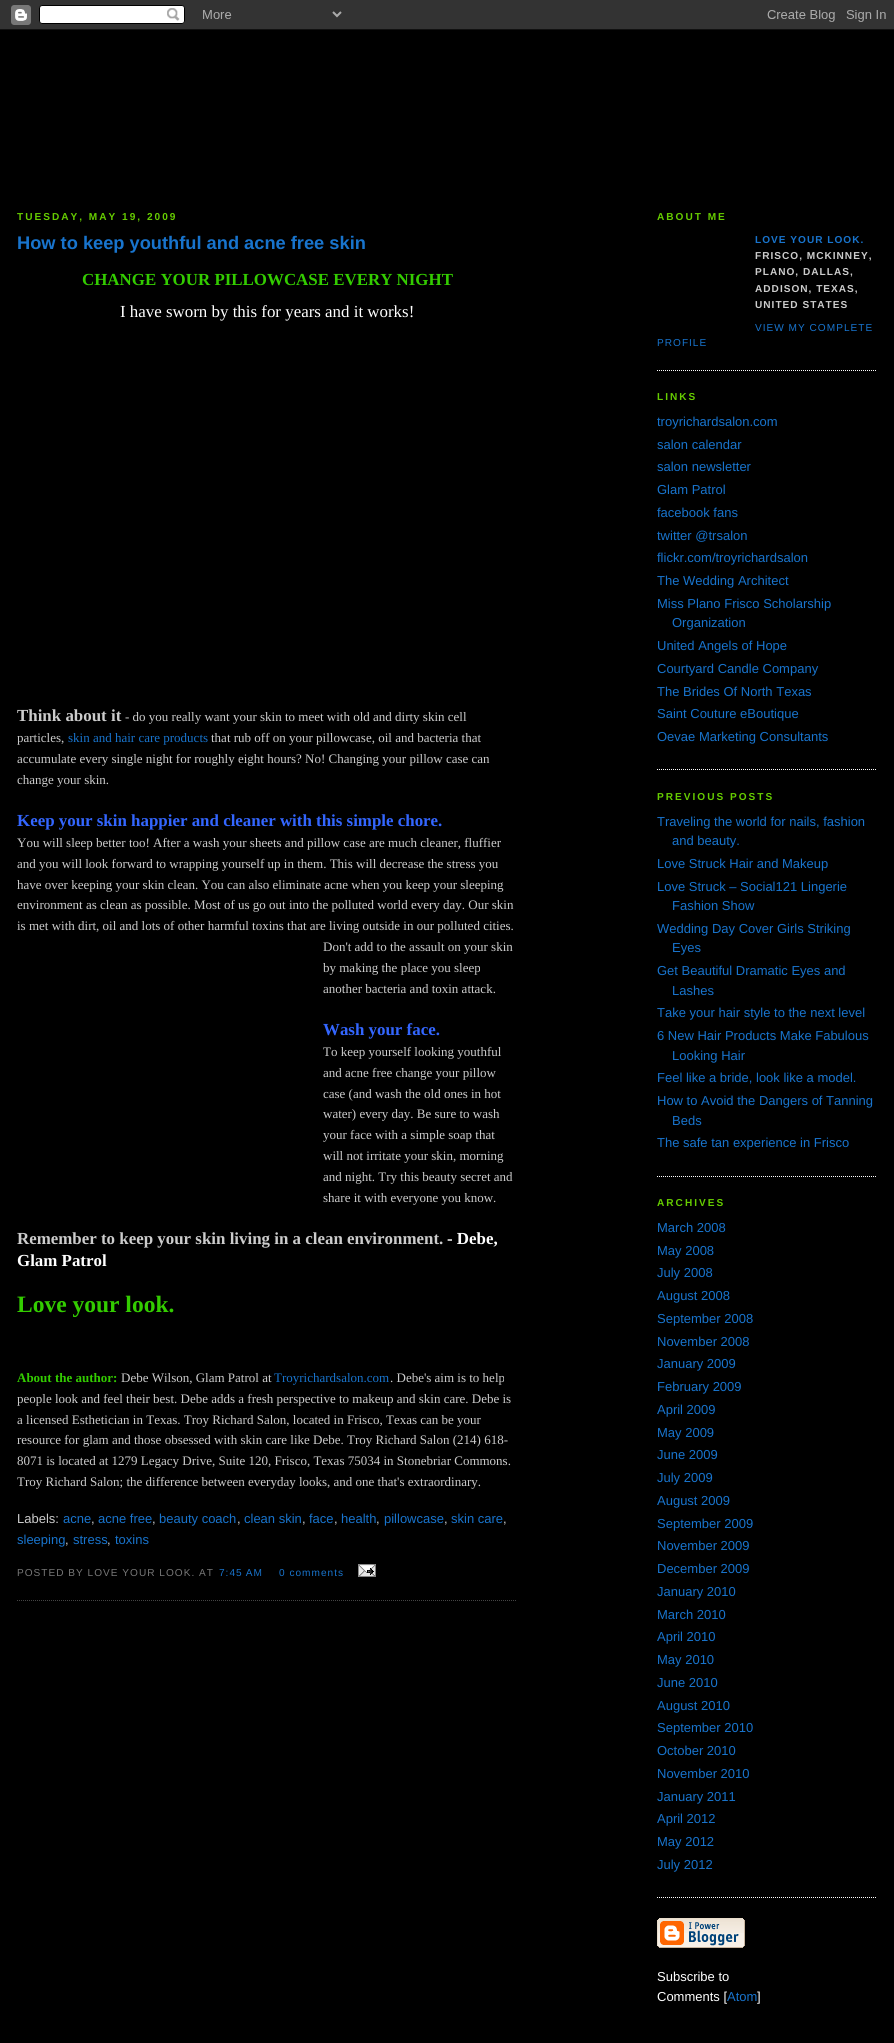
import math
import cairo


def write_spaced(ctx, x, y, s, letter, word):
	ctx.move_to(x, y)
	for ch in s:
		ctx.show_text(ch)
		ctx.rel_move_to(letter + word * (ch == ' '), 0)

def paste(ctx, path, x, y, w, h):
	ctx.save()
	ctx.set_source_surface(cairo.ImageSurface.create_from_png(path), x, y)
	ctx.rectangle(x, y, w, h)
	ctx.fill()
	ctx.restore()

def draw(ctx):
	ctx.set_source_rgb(0, 0, 0)
	ctx.paint()
	paste(ctx, 'media/1.png', 0, 0, 894, 30)
	ctx.select_font_face('Liberation Sans', cairo.FONT_SLANT_NORMAL, cairo.FONT_WEIGHT_BOLD)
	ctx.set_font_size(10.1)
	ctx.set_source_rgb(0.4, 0.804, 0)
	write_spaced(ctx, 17, 220, 'TUESDAY, MAY 19, 2009', 2, 0)
	ctx.new_path()
	ctx.move_to(17, 1600.5)
	ctx.line_to(517, 1600.5)
	ctx.set_source_rgb(0.267, 0.267, 0.267)
	ctx.set_line_width(1)
	ctx.set_dash([1, 1])
	ctx.stroke()
	ctx.set_font_size(18.25)
	ctx.set_source_rgb(0.094, 0.455, 0.804)
	ctx.move_to(17, 249)
	ctx.show_text('How to keep youthful and acne free skin')
	ctx.select_font_face('Liberation Serif', cairo.FONT_SLANT_NORMAL, cairo.FONT_WEIGHT_BOLD)
	ctx.set_font_size(16.9)
	ctx.set_source_rgb(0.2, 0.8, 0)
	ctx.move_to(82, 285)
	ctx.show_text('CHANGE YOUR PILLOWCASE EVERY NIGHT')
	ctx.select_font_face('Liberation Serif')
	ctx.set_source_rgb(1, 1, 1)
	ctx.move_to(120, 317)
	ctx.show_text('I have sworn by this for years and it works!')
	ctx.select_font_face('Liberation Serif', cairo.FONT_SLANT_NORMAL, cairo.FONT_WEIGHT_BOLD)
	ctx.set_source_rgb(0.8, 0.8, 0.8)
	ctx.move_to(17, 721)
	ctx.show_text('Think about it')
	ctx.select_font_face('Liberation Serif')
	ctx.set_font_size(13)
	ctx.move_to(125, 721)
	ctx.show_text('- do you really want your skin to meet with old and dirty skin cell')
	ctx.move_to(17, 742)
	ctx.show_text('particles,')
	ctx.set_source_rgb(0.094, 0.455, 0.804)
	ctx.move_to(68, 742)
	ctx.show_text('skin and hair care products')
	ctx.set_source_rgb(0.8, 0.8, 0.8)
	for x, y, s in [
		(211, 742, 'that rub off on your pillowcase, oil and bacteria that'),
		(17, 763, 'accumulate every single night for roughly eight hours? No! Changing your pillow case can'),
		(17, 784, 'change your skin.'),
	]:
		ctx.move_to(x, y)
		ctx.show_text(s)
	ctx.select_font_face('Liberation Serif', cairo.FONT_SLANT_NORMAL, cairo.FONT_WEIGHT_BOLD)
	ctx.set_font_size(16.9)
	ctx.set_source_rgb(0.2, 0.4, 1)
	ctx.move_to(17, 826)
	ctx.show_text('Keep your skin happier and cleaner with this simple chore.')
	ctx.select_font_face('Liberation Serif')
	ctx.set_font_size(13)
	ctx.set_source_rgb(0.8, 0.8, 0.8)
	for x, y, s in [
		(17, 847, 'You will sleep better too! After a wash your sheets and pillow case are much cleaner, fluffier'),
		(17, 868, 'and you will look forward to wrapping yourself up in them. This will decrease the stress you'),
		(17, 889, 'have over keeping your skin clean. You can also eliminate acne when you keep your sleeping'),
		(17, 909, 'environment as clean as possible. Most of us go out into the polluted world every day. Our skin'),
		(17, 930, 'is met with dirt, oil and lots of other harmful toxins that are living outside in our polluted cities.'),
		(323, 951, 'Don\'t add to the assault on your skin'),
		(323, 972, 'by making the place you sleep'),
		(323, 993, 'another bacteria and toxin attack.'),
	]:
		ctx.move_to(x, y)
		ctx.show_text(s)
	ctx.select_font_face('Liberation Serif', cairo.FONT_SLANT_NORMAL, cairo.FONT_WEIGHT_BOLD)
	ctx.set_font_size(16.9)
	ctx.set_source_rgb(0.2, 0.4, 1)
	ctx.move_to(323, 1035)
	ctx.show_text('Wash your face.')
	ctx.select_font_face('Liberation Serif')
	ctx.set_font_size(13)
	ctx.set_source_rgb(0.8, 0.8, 0.8)
	for x, y, s in [
		(323, 1056, 'To keep yourself looking youthful'),
		(323, 1077, 'and acne free change your pillow'),
		(323, 1098, 'case (and wash the old ones in hot'),
		(323, 1118, 'water) every day. Be sure to wash'),
		(323, 1139, 'your face with a simple soap that'),
		(323, 1160, 'will not irritate your skin, morning'),
		(323, 1181, 'and night. Try this beauty secret and'),
		(323, 1202, 'share it with everyone you know.'),
	]:
		ctx.move_to(x, y)
		ctx.show_text(s)
	ctx.select_font_face('Liberation Serif', cairo.FONT_SLANT_NORMAL, cairo.FONT_WEIGHT_BOLD)
	ctx.set_font_size(16.9)
	ctx.move_to(17, 1244)
	ctx.show_text('Remember to keep your skin living in a clean environment.')
	ctx.set_source_rgb(1, 1, 1)
	ctx.move_to(447, 1244)
	ctx.show_text('- Debe,')
	ctx.move_to(17, 1266)
	ctx.show_text('Glam Patrol')
	ctx.set_font_size(23.5)
	ctx.set_source_rgb(0.2, 0.8, 0)
	ctx.move_to(17, 1312)
	ctx.show_text('Love your look.')
	ctx.set_font_size(13)
	ctx.move_to(17, 1382)
	ctx.show_text('About the author:')
	ctx.select_font_face('Liberation Serif')
	ctx.set_source_rgb(0.8, 0.8, 0.8)
	ctx.move_to(121, 1382)
	ctx.show_text('Debe Wilson, Glam Patrol at')
	ctx.set_source_rgb(0.094, 0.455, 0.804)
	ctx.move_to(274, 1382)
	ctx.show_text('Troyrichardsalon.com')
	ctx.set_source_rgb(0.8, 0.8, 0.8)
	for x, y, s in [
		(390, 1382, '. Debe\'s aim is to help'),
		(17, 1403, 'people look and feel their best. Debe adds a fresh perspective to makeup and skin care. Debe is'),
		(17, 1424, 'a licensed Esthetician in Texas. Troy Richard Salon, located in Frisco, Texas can be your'),
		(17, 1444, 'resource for glam and those obsessed with skin care like Debe. Troy Richard Salon (214) 618-'),
		(17, 1465, '8071 is located at 1279 Legacy Drive, Suite 120, Frisco, Texas 75034 in Stonebriar Commons.'),
		(17, 1486, 'Troy Richard Salon; the difference between everyday looks, and one that\'s extraordinary.'),
	]:
		ctx.move_to(x, y)
		ctx.show_text(s)
	ctx.select_font_face('Liberation Sans')
	ctx.move_to(17, 1523)
	ctx.show_text('Labels:')
	ctx.set_source_rgb(0.094, 0.455, 0.804)
	ctx.move_to(63, 1523)
	ctx.show_text('acne')
	ctx.set_source_rgb(0.8, 0.8, 0.8)
	ctx.move_to(91, 1523)
	ctx.show_text(',')
	ctx.set_source_rgb(0.094, 0.455, 0.804)
	ctx.move_to(98, 1523)
	ctx.show_text('acne free')
	ctx.set_source_rgb(0.8, 0.8, 0.8)
	ctx.move_to(152, 1523)
	ctx.show_text(',')
	ctx.set_source_rgb(0.094, 0.455, 0.804)
	ctx.move_to(159, 1523)
	ctx.show_text('beauty coach')
	ctx.set_source_rgb(0.8, 0.8, 0.8)
	ctx.move_to(237, 1523)
	ctx.show_text(',')
	ctx.set_source_rgb(0.094, 0.455, 0.804)
	ctx.move_to(244, 1523)
	ctx.show_text('clean skin')
	ctx.set_source_rgb(0.8, 0.8, 0.8)
	ctx.move_to(302, 1523)
	ctx.show_text(',')
	ctx.set_source_rgb(0.094, 0.455, 0.804)
	ctx.move_to(309, 1523)
	ctx.show_text('face')
	ctx.set_source_rgb(0.8, 0.8, 0.8)
	ctx.move_to(334, 1523)
	ctx.show_text(',')
	ctx.set_source_rgb(0.094, 0.455, 0.804)
	ctx.move_to(341, 1523)
	ctx.show_text('health')
	ctx.set_source_rgb(0.8, 0.8, 0.8)
	ctx.move_to(376, 1523)
	ctx.show_text(',')
	ctx.set_source_rgb(0.094, 0.455, 0.804)
	ctx.move_to(384, 1523)
	ctx.show_text('pillowcase')
	ctx.set_source_rgb(0.8, 0.8, 0.8)
	ctx.move_to(444, 1523)
	ctx.show_text(',')
	ctx.set_source_rgb(0.094, 0.455, 0.804)
	ctx.move_to(451, 1523)
	ctx.show_text('skin care')
	ctx.set_source_rgb(0.8, 0.8, 0.8)
	ctx.move_to(503, 1523)
	ctx.show_text(',')
	ctx.set_source_rgb(0.094, 0.455, 0.804)
	ctx.move_to(17, 1544)
	ctx.show_text('sleeping')
	ctx.set_source_rgb(0.8, 0.8, 0.8)
	ctx.move_to(65, 1544)
	ctx.show_text(',')
	ctx.set_source_rgb(0.094, 0.455, 0.804)
	ctx.move_to(73, 1544)
	ctx.show_text('stress')
	ctx.set_source_rgb(0.8, 0.8, 0.8)
	ctx.move_to(107, 1544)
	ctx.show_text(',')
	ctx.set_source_rgb(0.094, 0.455, 0.804)
	ctx.move_to(115, 1544)
	ctx.show_text('toxins')
	ctx.set_font_size(10.1)
	ctx.set_source_rgb(0.467, 0.467, 0.467)
	write_spaced(ctx, 17, 1576, 'POSTED BY LOVE YOUR LOOK. AT', 1, 0)
	ctx.set_source_rgb(0.094, 0.455, 0.804)
	write_spaced(ctx, 219, 1576, '7:45 AM', 1, 0)
	write_spaced(ctx, 279, 1576, '0 comments', 1, 0)
	paste(ctx, 'media/2.png', 358, 1564, 18, 13)
	ctx.new_path()
	ctx.move_to(657, 370.5)
	ctx.line_to(877, 370.5)
	ctx.set_source_rgb(1, 1, 1)
	ctx.stroke()
	ctx.select_font_face('Liberation Sans', cairo.FONT_SLANT_NORMAL, cairo.FONT_WEIGHT_BOLD)
	ctx.set_source_rgb(0.4, 0.804, 0)
	write_spaced(ctx, 657, 220, 'ABOUT ME', 2, 0)
	ctx.set_source_rgb(0.094, 0.455, 0.804)
	write_spaced(ctx, 755, 243, 'LOVE YOUR LOOK.', 1, 0)
	ctx.set_source_rgb(0.8, 0.8, 0.8)
	for x, y, s in [
		(755, 259, 'FRISCO, MCKINNEY,'),
		(755, 275, 'PLANO, DALLAS,'),
		(755, 292, 'ADDISON, TEXAS,'),
		(755, 308, 'UNITED STATES'),
	]:
		write_spaced(ctx, x, y, s, 1, 0)
	ctx.select_font_face('Liberation Sans')
	ctx.set_source_rgb(0.094, 0.455, 0.804)
	write_spaced(ctx, 755, 331, 'VIEW MY COMPLETE', 1, 0)
	write_spaced(ctx, 657, 346, 'PROFILE', 1, 0)
	ctx.select_font_face('Liberation Sans', cairo.FONT_SLANT_NORMAL, cairo.FONT_WEIGHT_BOLD)
	ctx.set_source_rgb(0.4, 0.804, 0)
	write_spaced(ctx, 657, 400, 'LINKS', 2, 0)
	ctx.new_path()
	ctx.move_to(657, 769.5)
	ctx.line_to(877, 769.5)
	ctx.set_source_rgb(1, 1, 1)
	ctx.stroke()
	ctx.select_font_face('Liberation Sans')
	ctx.set_font_size(13)
	ctx.set_source_rgb(0.094, 0.455, 0.804)
	for x, y, s in [
		(657, 426, 'troyrichardsalon.com'),
		(657, 449, 'salon calendar'),
		(657, 471, 'salon newsletter'),
		(657, 494, 'Glam Patrol'),
		(657, 517, 'facebook fans'),
		(657, 540, 'twitter @trsalon'),
		(657, 562, 'flickr.com/troyrichardsalon'),
		(657, 585, 'The Wedding Architect'),
		(657, 608, 'Miss Plano Frisco Scholarship'),
		(672, 627, 'Organization'),
		(657, 650, 'United Angels of Hope'),
		(657, 673, 'Courtyard Candle Company'),
		(657, 696, 'The Brides Of North Texas'),
		(657, 718, 'Saint Couture eBoutique'),
		(657, 741, 'Oevae Marketing Consultants'),
	]:
		ctx.move_to(x, y)
		ctx.show_text(s)
	ctx.select_font_face('Liberation Sans', cairo.FONT_SLANT_NORMAL, cairo.FONT_WEIGHT_BOLD)
	ctx.set_font_size(10.1)
	ctx.set_source_rgb(0.4, 0.804, 0)
	write_spaced(ctx, 657, 800, 'PREVIOUS POSTS', 2, 0)
	ctx.new_path()
	ctx.move_to(657, 1176.5)
	ctx.line_to(877, 1176.5)
	ctx.set_source_rgb(1, 1, 1)
	ctx.stroke()
	ctx.select_font_face('Liberation Sans')
	ctx.set_font_size(13)
	ctx.set_source_rgb(0.094, 0.455, 0.804)
	for x, y, s in [
		(657, 826, 'Traveling the world for nails, fashion'),
		(672, 845, 'and beauty.'),
		(657, 868, 'Love Struck Hair and Makeup'),
		(657, 891, 'Love Struck – Social121 Lingerie'),
		(672, 910, 'Fashion Show'),
		(657, 933, 'Wedding Day Cover Girls Striking'),
		(672, 952, 'Eyes'),
		(657, 975, 'Get Beautiful Dramatic Eyes and'),
		(672, 995, 'Lashes'),
		(657, 1017, 'Take your hair style to the next level'),
		(657, 1040, '6 New Hair Products Make Fabulous'),
		(672, 1060, 'Looking Hair'),
		(657, 1082, 'Feel like a bride, look like a model.'),
		(657, 1105, 'How to Avoid the Dangers of Tanning'),
		(672, 1125, 'Beds'),
		(657, 1147, 'The safe tan experience in Frisco'),
	]:
		ctx.move_to(x, y)
		ctx.show_text(s)
	ctx.select_font_face('Liberation Sans', cairo.FONT_SLANT_NORMAL, cairo.FONT_WEIGHT_BOLD)
	ctx.set_font_size(10.1)
	ctx.set_source_rgb(0.4, 0.804, 0)
	write_spaced(ctx, 657, 1206, 'ARCHIVES', 2, 0)
	ctx.new_path()
	ctx.move_to(657, 1897.5)
	ctx.line_to(877, 1897.5)
	ctx.set_source_rgb(1, 1, 1)
	ctx.stroke()
	ctx.select_font_face('Liberation Sans')
	ctx.set_font_size(13)
	ctx.set_source_rgb(0.094, 0.455, 0.804)
	for x, y, s in [
		(657, 1232, 'March 2008'),
		(657, 1255, 'May 2008'),
		(657, 1277, 'July 2008'),
		(657, 1300, 'August 2008'),
		(657, 1323, 'September 2008'),
		(657, 1346, 'November 2008'),
		(657, 1368, 'January 2009'),
		(657, 1391, 'February 2009'),
		(657, 1414, 'April 2009'),
		(657, 1437, 'May 2009'),
		(657, 1459, 'June 2009'),
		(657, 1482, 'July 2009'),
		(657, 1505, 'August 2009'),
		(657, 1528, 'September 2009'),
		(657, 1550, 'November 2009'),
		(657, 1573, 'December 2009'),
		(657, 1596, 'January 2010'),
		(657, 1619, 'March 2010'),
		(657, 1641, 'April 2010'),
		(657, 1664, 'May 2010'),
		(657, 1687, 'June 2010'),
		(657, 1710, 'August 2010'),
		(657, 1732, 'September 2010'),
		(657, 1755, 'October 2010'),
		(657, 1778, 'November 2010'),
		(657, 1801, 'January 2011'),
		(657, 1823, 'April 2012'),
		(657, 1846, 'May 2012'),
		(657, 1869, 'July 2012'),
	]:
		ctx.move_to(x, y)
		ctx.show_text(s)
	paste(ctx, 'media/3.png', 657, 1918, 88, 30)
	ctx.set_source_rgb(1, 1, 1)
	ctx.move_to(657, 1981)
	ctx.show_text('Subscribe to')
	ctx.move_to(657, 2001)
	ctx.show_text('Comments [')
	ctx.set_source_rgb(0.094, 0.455, 0.804)
	ctx.move_to(727, 2001)
	ctx.show_text('Atom')
	ctx.set_source_rgb(1, 1, 1)
	ctx.move_to(757, 2001)
	ctx.show_text(']')


surface = cairo.ImageSurface(cairo.FORMAT_RGB24, 894, 2043)
ctx = cairo.Context(surface)
options = cairo.FontOptions()
options.set_hint_metrics(cairo.HINT_METRICS_OFF)
options.set_hint_style(cairo.HINT_STYLE_NONE)
ctx.set_font_options(options)
ctx.set_miter_limit(4)
draw(ctx)
surface.write_to_png('image.png')
